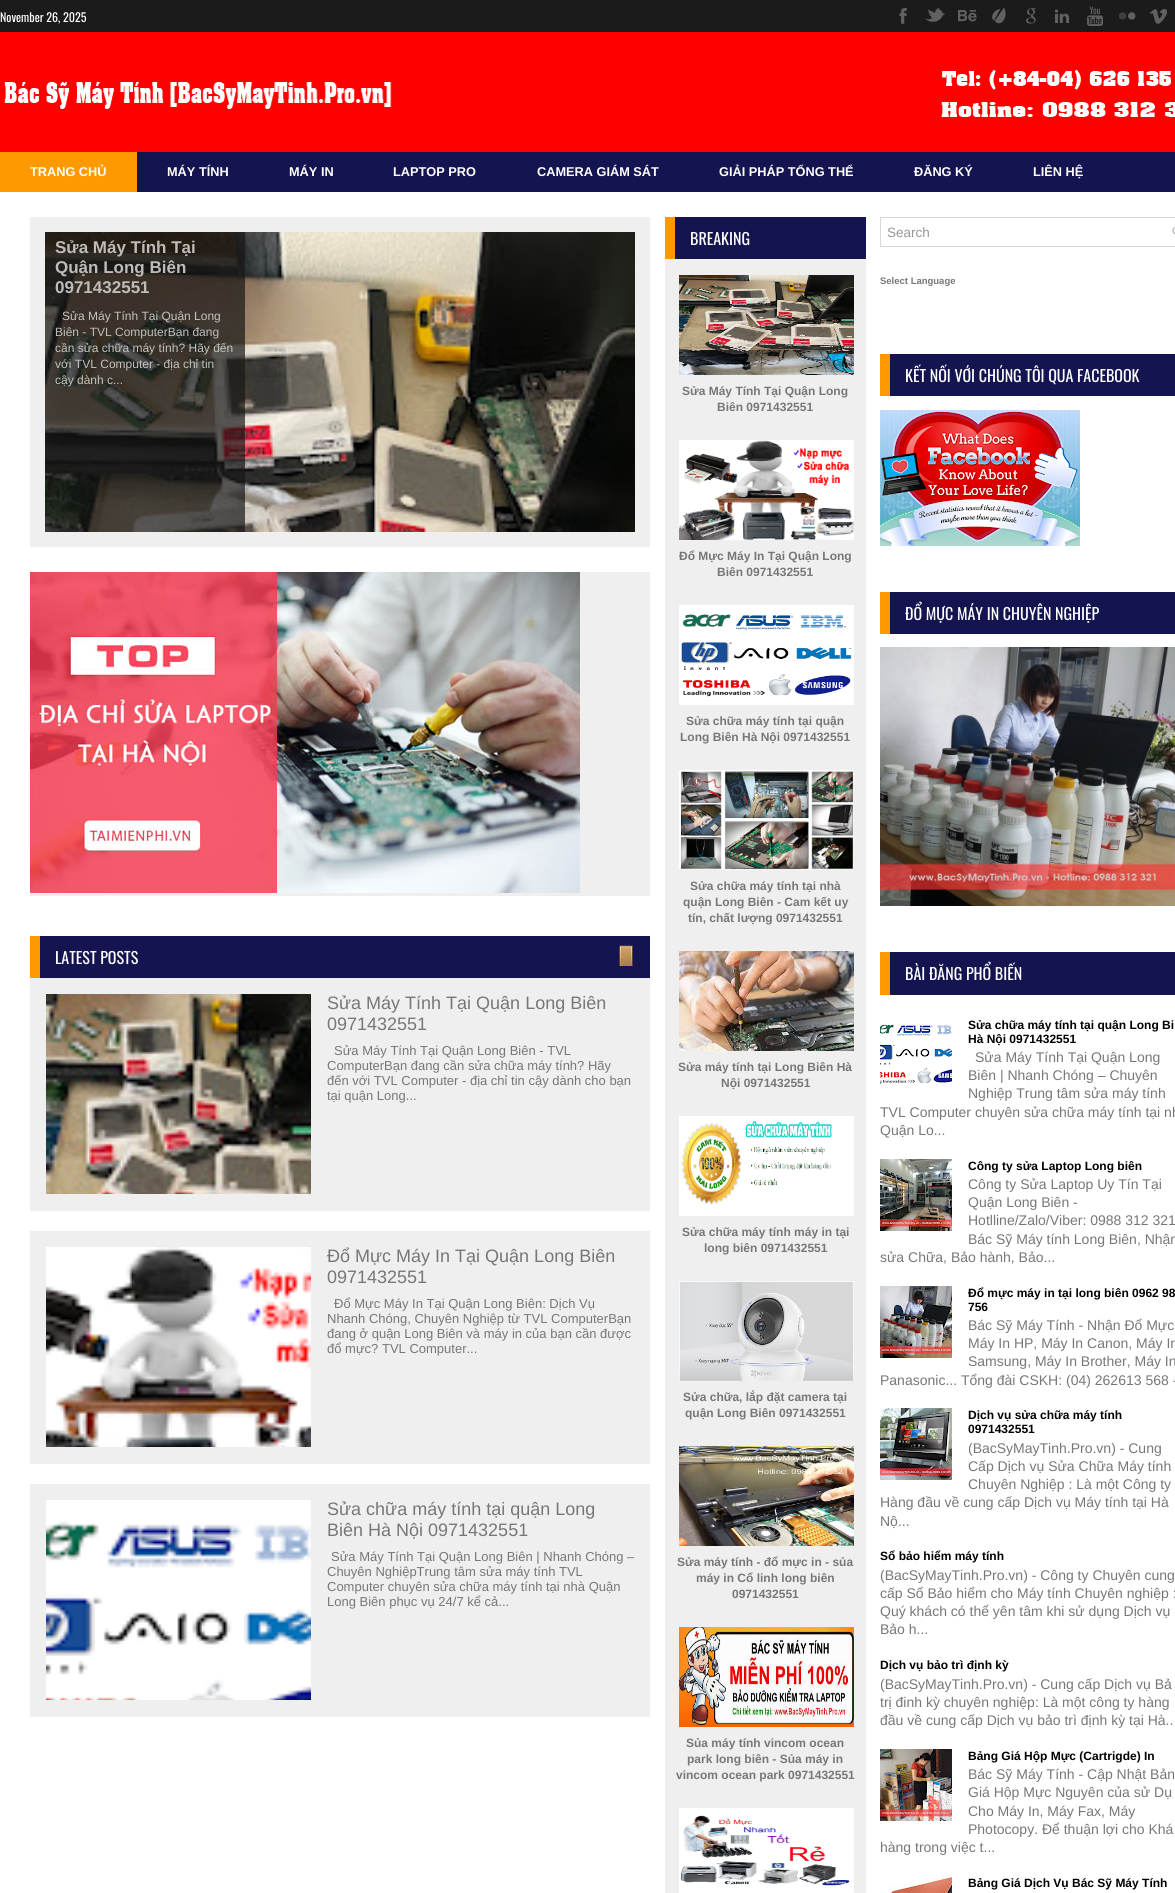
import math
import cairo


def paste(ctx, path, x, y, w, h):
	ctx.save()
	ctx.set_source_surface(cairo.ImageSurface.create_from_png(path), x, y)
	ctx.rectangle(x, y, w, h)
	ctx.fill()
	ctx.restore()

def draw(ctx):
	ctx.set_source_rgb(0.106, 0.106, 0.106)
	ctx.paint()
	ctx.select_font_face('Oswald')
	ctx.set_font_size(12)
	ctx.set_source_rgb(1, 1, 1)
	ctx.move_to(0, 22)
	ctx.show_text('November 26, 2025')
	paste(ctx, 'media/1.png', 899, 8, 8, 16)
	paste(ctx, 'media/2.png', 925, 8, 20, 14)
	paste(ctx, 'media/3.png', 958, 10, 19, 12)
	paste(ctx, 'media/4.png', 992, 7, 14, 17)
	paste(ctx, 'media/5.png', 1026, 8, 10, 16)
	paste(ctx, 'media/6.png', 1054, 9, 16, 14)
	paste(ctx, 'media/7.png', 1087, 6, 16, 20)
	paste(ctx, 'media/8.png', 1118, 12, 18, 8)
	paste(ctx, 'media/9.png', 1150, 9, 17, 15)
	ctx.set_source_rgb(1, 0, 0)
	ctx.rectangle(0, 32, 1175, 120)
	ctx.fill()
	paste(ctx, 'media/10.png', 4, 70, 1171, 47)
	ctx.set_source_rgb(0.082, 0.082, 0.318)
	ctx.rectangle(137, 152, 1038, 40)
	ctx.fill()
	ctx.set_source_rgb(1, 0.6, 0)
	ctx.rectangle(0, 152, 137, 40)
	ctx.fill()
	ctx.select_font_face('Liberation Sans', cairo.FONT_SLANT_NORMAL, cairo.FONT_WEIGHT_BOLD)
	ctx.set_font_size(12.75)
	ctx.set_source_rgb(1, 1, 1)
	for x, y, s in [
		(30, 176, 'TRANG CHỦ'),
		(167, 176, 'MÁY TÍNH'),
		(289, 176, 'MÁY IN'),
		(393, 176, 'LAPTOP PRO'),
		(537, 176, 'CAMERA GIÁM SÁT'),
		(719, 176, 'GIẢI PHÁP TỔNG THỂ'),
		(914, 176, 'ĐĂNG KÝ'),
		(1033, 176, 'LIÊN HỆ'),
	]:
		ctx.move_to(x, y)
		ctx.show_text(s)
	ctx.rectangle(0, 192, 1175, 1701)
	ctx.fill()
	ctx.set_source_rgb(0.937, 0.937, 0.937)
	ctx.rectangle(30, 217, 620, 330)
	ctx.fill()
	paste(ctx, 'media/11.png', 45, 232, 590, 300)
	ctx.set_source_rgba(0.094, 0.094, 0.094, 0.7)
	ctx.rectangle(45, 232, 200, 300)
	ctx.fill()
	ctx.set_font_size(17)
	ctx.set_source_rgb(0.745, 0.737, 0.725)
	for x, y, s in [
		(55, 253, 'Sửa Máy Tính Tại'),
		(55, 273, 'Quận Long Biên'),
		(55, 293, '0971432551'),
	]:
		ctx.move_to(x, y)
		ctx.show_text(s)
	ctx.select_font_face('Liberation Sans')
	ctx.set_font_size(12)
	ctx.set_source_rgb(0.769, 0.761, 0.749)
	ctx.move_to(62, 320)
	ctx.show_text('Sửa Máy Tính Tại Quận Long')
	ctx.set_source_rgb(0.745, 0.737, 0.725)
	ctx.move_to(55, 336)
	ctx.show_text('Biên - TVL ComputerBạn đang')
	ctx.set_source_rgb(0.769, 0.761, 0.749)
	for x, y, s in [
		(55, 352, 'cần sửa chữa máy tính? Hãy đến'),
		(55, 368, 'với TVL Computer - địa chỉ tin'),
		(55, 384, 'cậy dành c...'),
	]:
		ctx.move_to(x, y)
		ctx.show_text(s)
	ctx.set_source_rgb(0.937, 0.937, 0.937)
	ctx.rectangle(30, 572, 620, 324)
	ctx.fill()
	paste(ctx, 'media/12.png', 30, 572, 550, 321)
	ctx.set_source_rgb(0.082, 0.082, 0.318)
	ctx.rectangle(40, 936, 610, 42)
	ctx.fill()
	ctx.set_source_rgb(1, 0.6, 0)
	ctx.rectangle(30, 936, 10, 42)
	ctx.fill()
	ctx.select_font_face('Oswald')
	ctx.set_font_size(16)
	ctx.set_source_rgb(1, 1, 1)
	ctx.move_to(55, 964)
	ctx.show_text('LATEST POSTS')
	paste(ctx, 'media/13.png', 619, 945, 14, 21)
	ctx.set_source_rgb(0.937, 0.937, 0.937)
	ctx.rectangle(30, 978, 620, 233)
	ctx.fill()
	paste(ctx, 'media/14.png', 46, 994, 265, 200)
	ctx.select_font_face('Liberation Sans')
	ctx.set_font_size(18)
	ctx.set_source_rgb(0.467, 0.467, 0.467)
	ctx.move_to(327, 1009)
	ctx.show_text('Sửa Máy Tính Tại Quận Long Biên')
	ctx.move_to(327, 1030)
	ctx.show_text('0971432551')
	ctx.set_font_size(13)
	for x, y, s in [
		(334, 1055, 'Sửa Máy Tính Tại Quận Long Biên - TVL'),
		(327, 1070, 'ComputerBạn đang cần sửa chữa máy tính? Hãy'),
		(327, 1085, 'đến với TVL Computer - địa chỉ tin cậy dành cho bạn'),
		(327, 1100, 'tại quận Long...'),
	]:
		ctx.move_to(x, y)
		ctx.show_text(s)
	ctx.set_source_rgb(0.937, 0.937, 0.937)
	ctx.rectangle(30, 1231, 620, 233)
	ctx.fill()
	paste(ctx, 'media/15.png', 46, 1247, 265, 200)
	ctx.set_font_size(18)
	ctx.set_source_rgb(0.467, 0.467, 0.467)
	ctx.move_to(327, 1262)
	ctx.show_text('Đổ Mực Máy In Tại Quận Long Biên')
	ctx.move_to(327, 1283)
	ctx.show_text('0971432551')
	ctx.set_font_size(13)
	for x, y, s in [
		(334, 1308, 'Đổ Mực Máy In Tại Quận Long Biên: Dịch Vụ'),
		(327, 1323, 'Nhanh Chóng, Chuyên Nghiệp từ TVL ComputerBạn'),
		(327, 1338, 'đang ở quận Long Biên và máy in của bạn cần được'),
		(327, 1353, 'đổ mực? TVL Computer...'),
	]:
		ctx.move_to(x, y)
		ctx.show_text(s)
	ctx.set_source_rgb(0.937, 0.937, 0.937)
	ctx.rectangle(30, 1484, 620, 233)
	ctx.fill()
	paste(ctx, 'media/16.png', 46, 1500, 265, 200)
	ctx.set_font_size(18)
	ctx.set_source_rgb(0.467, 0.467, 0.467)
	ctx.move_to(327, 1515)
	ctx.show_text('Sửa chữa máy tính tại quận Long')
	ctx.move_to(327, 1536)
	ctx.show_text('Biên Hà Nội 0971432551')
	ctx.set_font_size(13)
	for x, y, s in [
		(331, 1561, 'Sửa Máy Tính Tại Quận Long Biên | Nhanh Chóng –'),
		(327, 1576, 'Chuyên NghiệpTrung tâm sửa máy tính TVL'),
		(327, 1591, 'Computer chuyên sửa chữa máy tính tại nhà Quận'),
		(327, 1606, 'Long Biên phục vụ 24/7 kể cả...'),
	]:
		ctx.move_to(x, y)
		ctx.show_text(s)
	ctx.set_source_rgb(0.082, 0.082, 0.318)
	ctx.rectangle(675, 217, 191, 42)
	ctx.fill()
	ctx.set_source_rgb(1, 0.6, 0)
	ctx.rectangle(665, 217, 10, 42)
	ctx.fill()
	ctx.select_font_face('Oswald')
	ctx.set_font_size(16)
	ctx.set_source_rgb(1, 1, 1)
	ctx.move_to(690, 245)
	ctx.show_text('BREAKING')
	ctx.set_source_rgb(0.937, 0.937, 0.937)
	ctx.rectangle(665, 259, 201, 1634)
	ctx.fill()
	paste(ctx, 'media/17.png', 679, 275, 175, 100)
	ctx.select_font_face('Liberation Sans', cairo.FONT_SLANT_NORMAL, cairo.FONT_WEIGHT_BOLD)
	ctx.set_font_size(12)
	ctx.set_source_rgb(0.467, 0.467, 0.467)
	ctx.move_to(682, 395)
	ctx.show_text('Sửa Máy Tính Tại Quận Long')
	ctx.move_to(717, 411)
	ctx.show_text('Biên 0971432551')
	paste(ctx, 'media/18.png', 679, 440, 175, 100)
	ctx.move_to(679, 560)
	ctx.show_text('Đổ Mực Máy In Tại Quận Long')
	ctx.move_to(717, 576)
	ctx.show_text('Biên 0971432551')
	paste(ctx, 'media/19.png', 679, 605, 175, 100)
	ctx.move_to(686, 725)
	ctx.show_text('Sửa chữa máy tính tại quận')
	ctx.move_to(680, 741)
	ctx.show_text('Long Biên Hà Nội 0971432551')
	paste(ctx, 'media/20.png', 679, 770, 175, 100)
	for x, y, s in [
		(690, 890, 'Sửa chữa máy tính tại nhà'),
		(683, 906, 'quận Long Biên - Cam kết uy'),
		(688, 922, 'tín, chất lượng 0971432551'),
	]:
		ctx.move_to(x, y)
		ctx.show_text(s)
	paste(ctx, 'media/21.png', 679, 951, 175, 100)
	ctx.move_to(678, 1071)
	ctx.show_text('Sửa máy tính tại Long Biên Hà')
	ctx.move_to(721, 1087)
	ctx.show_text('Nội 0971432551')
	paste(ctx, 'media/22.png', 679, 1116, 175, 100)
	ctx.move_to(682, 1236)
	ctx.show_text('Sửa chữa máy tính máy in tại')
	ctx.move_to(704, 1252)
	ctx.show_text('long biên 0971432551')
	paste(ctx, 'media/23.png', 679, 1281, 175, 100)
	ctx.move_to(683, 1401)
	ctx.show_text('Sửa chữa, lắp đặt camera tại')
	ctx.move_to(685, 1417)
	ctx.show_text('quận Long Biên 0971432551')
	paste(ctx, 'media/24.png', 679, 1446, 175, 100)
	for x, y, s in [
		(677, 1566, 'Sửa máy tính - đổ mực in - sủa'),
		(696, 1582, 'máy in Cổ linh long biên'),
		(732, 1598, '0971432551'),
	]:
		ctx.move_to(x, y)
		ctx.show_text(s)
	paste(ctx, 'media/25.png', 679, 1627, 175, 100)
	for x, y, s in [
		(686, 1747, 'Sủa máy tính vincom ocean'),
		(687, 1763, 'park long biên - Sủa máy in'),
		(676, 1779, 'vincom ocean park 0971432551'),
	]:
		ctx.move_to(x, y)
		ctx.show_text(s)
	paste(ctx, 'media/26.png', 679, 1808, 175, 85)
	paste(ctx, 'media/27.png', 1172, 226, 3, 9)
	ctx.rectangle(880.5, 217.5, 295, 29)
	ctx.set_source_rgb(0.847, 0.847, 0.847)
	ctx.set_line_width(1)
	ctx.stroke()
	ctx.select_font_face('Liberation Sans')
	ctx.set_font_size(13.5)
	ctx.set_source_rgb(0.592, 0.592, 0.592)
	ctx.move_to(887, 237)
	ctx.show_text('Search')
	ctx.select_font_face('Liberation Sans', cairo.FONT_SLANT_NORMAL, cairo.FONT_WEIGHT_BOLD)
	ctx.set_font_size(9.5)
	ctx.set_source_rgb(0.467, 0.467, 0.467)
	ctx.move_to(880, 284)
	ctx.show_text('Select Language')
	ctx.set_source_rgb(0.082, 0.082, 0.318)
	ctx.rectangle(890, 354, 285, 42)
	ctx.fill()
	ctx.set_source_rgb(1, 0.6, 0)
	ctx.rectangle(880, 354, 10, 42)
	ctx.fill()
	ctx.select_font_face('Oswald')
	ctx.set_font_size(16)
	ctx.set_source_rgb(1, 1, 1)
	ctx.move_to(905, 382)
	ctx.show_text('KẾT NỐI VỚI CHÚNG TÔI QUA FACEBOOK')
	paste(ctx, 'media/28.png', 880, 410, 200, 136)
	ctx.set_source_rgb(0.082, 0.082, 0.318)
	ctx.rectangle(890, 592, 285, 42)
	ctx.fill()
	ctx.set_source_rgb(1, 0.6, 0)
	ctx.rectangle(880, 592, 10, 42)
	ctx.fill()
	ctx.set_source_rgb(1, 1, 1)
	ctx.move_to(905, 620)
	ctx.show_text('ĐỔ MỰC MÁY IN CHUYÊN NGHIỆP')
	paste(ctx, 'media/29.png', 880, 647, 295, 259)
	ctx.set_source_rgb(0.082, 0.082, 0.318)
	ctx.rectangle(890, 952, 285, 43)
	ctx.fill()
	ctx.set_source_rgb(1, 0.6, 0)
	ctx.rectangle(880, 952, 10, 43)
	ctx.fill()
	ctx.set_source_rgb(1, 1, 1)
	ctx.move_to(905, 980)
	ctx.show_text('BÀI ĐĂNG PHỔ BIẾN')
	paste(ctx, 'media/30.png', 880, 1024, 72, 60)
	ctx.select_font_face('Liberation Sans', cairo.FONT_SLANT_NORMAL, cairo.FONT_WEIGHT_BOLD)
	ctx.set_font_size(12)
	ctx.set_source_rgb(0, 0, 0)
	ctx.move_to(968, 1029)
	ctx.show_text('Sửa chữa máy tính tại quận Long Bi')
	ctx.move_to(968, 1043)
	ctx.show_text('Hà Nội 0971432551')
	ctx.select_font_face('Liberation Sans')
	ctx.set_font_size(14)
	ctx.set_source_rgb(0.467, 0.467, 0.467)
	for x, y, s in [
		(975, 1062, 'Sửa Máy Tính Tại Quận Long'),
		(968, 1080, 'Biên | Nhanh Chóng – Chuyên'),
		(968, 1098, 'Nghiệp Trung tâm sửa máy tính'),
		(880, 1117, 'TVL Computer chuyên sửa chữa máy tính tại nh'),
		(880, 1135, 'Quận Lo...'),
	]:
		ctx.move_to(x, y)
		ctx.show_text(s)
	paste(ctx, 'media/31.png', 880, 1159, 72, 72)
	ctx.select_font_face('Liberation Sans', cairo.FONT_SLANT_NORMAL, cairo.FONT_WEIGHT_BOLD)
	ctx.set_font_size(12)
	ctx.set_source_rgb(0, 0, 0)
	ctx.move_to(968, 1170)
	ctx.show_text('Công ty sửa Laptop Long biên')
	ctx.select_font_face('Liberation Sans')
	ctx.set_font_size(14)
	ctx.set_source_rgb(0.467, 0.467, 0.467)
	for x, y, s in [
		(968, 1189, 'Công ty Sửa Laptop Uy Tín Tại'),
		(968, 1207, 'Quận Long Biên -'),
		(968, 1225, 'Hotlline/Zalo/Viber: 0988 312 321'),
		(968, 1244, 'Bác Sỹ Máy tính Long Biên, Nhận'),
		(880, 1262, 'sửa Chữa, Bảo hành, Bảo...'),
	]:
		ctx.move_to(x, y)
		ctx.show_text(s)
	paste(ctx, 'media/32.png', 880, 1286, 72, 72)
	ctx.select_font_face('Liberation Sans', cairo.FONT_SLANT_NORMAL, cairo.FONT_WEIGHT_BOLD)
	ctx.set_font_size(12)
	ctx.set_source_rgb(0, 0, 0)
	ctx.move_to(968, 1297)
	ctx.show_text('Đổ mực máy in tại long biên 0962 98')
	ctx.move_to(968, 1311)
	ctx.show_text('756')
	ctx.select_font_face('Liberation Sans')
	ctx.set_font_size(14)
	ctx.set_source_rgb(0.467, 0.467, 0.467)
	for x, y, s in [
		(968, 1330, 'Bác Sỹ Máy Tính - Nhận Đổ Mực'),
		(968, 1348, 'Máy In HP, Máy In Canon, Máy In'),
		(968, 1366, 'Samsung, Máy In Brother, Máy In'),
		(880, 1385, 'Panasonic... Tổng đài CSKH: (04) 262613 568 -'),
	]:
		ctx.move_to(x, y)
		ctx.show_text(s)
	paste(ctx, 'media/33.png', 880, 1408, 72, 72)
	ctx.select_font_face('Liberation Sans', cairo.FONT_SLANT_NORMAL, cairo.FONT_WEIGHT_BOLD)
	ctx.set_font_size(12)
	ctx.set_source_rgb(0, 0, 0)
	ctx.move_to(968, 1419)
	ctx.show_text('Dịch vụ sửa chữa máy tính')
	ctx.move_to(968, 1433)
	ctx.show_text('0971432551')
	ctx.select_font_face('Liberation Sans')
	ctx.set_font_size(14)
	ctx.set_source_rgb(0.467, 0.467, 0.467)
	for x, y, s in [
		(968, 1453, '(BacSyMayTinh.Pro.vn) - Cung'),
		(968, 1471, 'Cấp Dịch vụ Sửa Chữa Máy tính'),
		(968, 1489, 'Chuyên Nghiệp : Là một Công ty'),
		(880, 1507, 'Hàng đầu về cung cấp Dịch vụ Máy tính tại Hà'),
		(880, 1526, 'Nộ...'),
	]:
		ctx.move_to(x, y)
		ctx.show_text(s)
	ctx.select_font_face('Liberation Sans', cairo.FONT_SLANT_NORMAL, cairo.FONT_WEIGHT_BOLD)
	ctx.set_font_size(12)
	ctx.set_source_rgb(0, 0, 0)
	ctx.move_to(880, 1560)
	ctx.show_text('Sổ bảo hiểm máy tính')
	ctx.select_font_face('Liberation Sans')
	ctx.set_font_size(14)
	ctx.set_source_rgb(0.467, 0.467, 0.467)
	for x, y, s in [
		(880, 1580, '(BacSyMayTinh.Pro.vn) - Công ty Chuyên cung'),
		(880, 1598, 'cấp Sổ Bảo hiểm cho Máy tính Chuyên nghiệp :'),
		(880, 1616, 'Quý khách có thể yên tâm khi sử dụng Dịch vụ'),
		(880, 1634, 'Bảo h...'),
	]:
		ctx.move_to(x, y)
		ctx.show_text(s)
	ctx.select_font_face('Liberation Sans', cairo.FONT_SLANT_NORMAL, cairo.FONT_WEIGHT_BOLD)
	ctx.set_font_size(12)
	ctx.set_source_rgb(0, 0, 0)
	ctx.move_to(880, 1669)
	ctx.show_text('Dịch vụ bảo trì định kỳ')
	ctx.select_font_face('Liberation Sans')
	ctx.set_font_size(14)
	ctx.set_source_rgb(0.467, 0.467, 0.467)
	for x, y, s in [
		(880, 1689, '(BacSyMayTinh.Pro.vn) - Cung cấp Dịch vụ Bả'),
		(880, 1707, 'trị đinh kỳ chuyên nghiệp: Là một công ty hàng'),
		(880, 1725, 'đầu về cung cấp Dịch vụ bảo trì định kỳ tại Hà..'),
	]:
		ctx.move_to(x, y)
		ctx.show_text(s)
	paste(ctx, 'media/34.png', 880, 1749, 72, 72)
	ctx.select_font_face('Liberation Sans', cairo.FONT_SLANT_NORMAL, cairo.FONT_WEIGHT_BOLD)
	ctx.set_font_size(12)
	ctx.set_source_rgb(0, 0, 0)
	ctx.move_to(968, 1760)
	ctx.show_text('Bảng Giá Hộp Mực (Cartrigde) In')
	ctx.select_font_face('Liberation Sans')
	ctx.set_font_size(14)
	ctx.set_source_rgb(0.467, 0.467, 0.467)
	for x, y, s in [
		(968, 1779, 'Bác Sỹ Máy Tính - Cập Nhật Bản'),
		(968, 1797, 'Giá Hộp Mực Nguyên của sử Dụ'),
		(968, 1816, 'Cho Máy In, Máy Fax, Máy'),
		(968, 1834, 'Photocopy. Để thuận lợi cho Khá'),
		(880, 1852, 'hàng trong việc t...'),
	]:
		ctx.move_to(x, y)
		ctx.show_text(s)
	paste(ctx, 'media/35.png', 880, 1876, 72, 17)
	ctx.select_font_face('Liberation Sans', cairo.FONT_SLANT_NORMAL, cairo.FONT_WEIGHT_BOLD)
	ctx.set_font_size(12)
	ctx.set_source_rgb(0, 0, 0)
	ctx.move_to(968, 1887)
	ctx.show_text('Bảng Giá Dịch Vụ Bác Sỹ Máy Tính')


surface = cairo.ImageSurface(cairo.FORMAT_RGB24, 1175, 1893)
ctx = cairo.Context(surface)
options = cairo.FontOptions()
options.set_hint_metrics(cairo.HINT_METRICS_OFF)
options.set_hint_style(cairo.HINT_STYLE_NONE)
ctx.set_font_options(options)
ctx.set_miter_limit(4)
draw(ctx)
surface.write_to_png('image.png')
